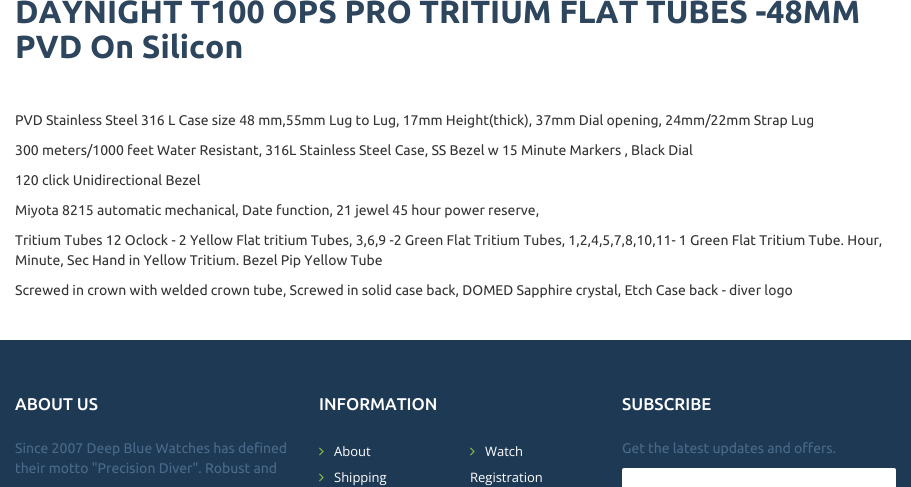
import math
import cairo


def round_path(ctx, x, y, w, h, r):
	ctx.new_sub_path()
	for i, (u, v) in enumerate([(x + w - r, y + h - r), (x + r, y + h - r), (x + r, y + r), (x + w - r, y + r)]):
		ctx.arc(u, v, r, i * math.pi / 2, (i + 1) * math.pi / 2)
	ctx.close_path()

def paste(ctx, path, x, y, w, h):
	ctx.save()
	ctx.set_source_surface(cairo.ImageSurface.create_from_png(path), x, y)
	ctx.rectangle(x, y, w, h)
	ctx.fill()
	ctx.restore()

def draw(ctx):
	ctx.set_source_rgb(1, 1, 1)
	ctx.paint()
	ctx.select_font_face('Ubuntu', cairo.FONT_SLANT_NORMAL, cairo.FONT_WEIGHT_BOLD)
	ctx.set_font_size(32)
	ctx.set_source_rgb(0.18, 0.271, 0.369)
	ctx.move_to(15, 23)
	ctx.show_text('DAYNIGHT T100 OPS PRO TRITIUM FLAT TUBES -48MM')
	ctx.move_to(15, 58)
	ctx.show_text('PVD On Silicon')
	ctx.select_font_face('Ubuntu')
	ctx.set_font_size(14)
	ctx.set_source_rgb(0.2, 0.2, 0.2)
	for x, y, s in [
		(15, 125, 'PVD Stainless Steel 316 L Case size 48 mm,55mm Lug to Lug, 17mm Height(thick), 37mm Dial opening, 24mm/22mm Strap Lug'),
		(15, 155, '300 meters/1000 feet Water Resistant, 316L Stainless Steel Case, SS Bezel w 15 Minute Markers , Black Dial'),
		(15, 185, '120 click Unidirectional Bezel'),
		(15, 215, 'Miyota 8215 automatic mechanical, Date function, 21 jewel 45 hour power reserve,'),
		(15, 245, 'Tritium Tubes 12 Oclock - 2 Yellow Flat tritium Tubes, 3,6,9 -2 Green Flat Tritium Tubes, 1,2,4,5,7,8,10,11- 1 Green Flat Tritium Tube. Hour,'),
		(15, 265, 'Minute, Sec Hand in Yellow Tritium. Bezel Pip Yellow Tube'),
		(15, 295, 'Screwed in crown with welded crown tube, Screwed in solid case back, DOMED Sapphire crystal, Etch Case back - diver logo'),
	]:
		ctx.move_to(x, y)
		ctx.show_text(s)
	ctx.set_source_rgb(0.118, 0.224, 0.325)
	ctx.rectangle(0, 340, 911, 147)
	ctx.fill()
	ctx.select_font_face('Ubuntu Medium')
	ctx.set_font_size(17)
	ctx.set_source_rgb(1, 1, 1)
	ctx.move_to(15, 410)
	ctx.show_text('ABOUT US')
	ctx.select_font_face('Ubuntu')
	ctx.set_font_size(14)
	ctx.set_source_rgb(0.286, 0.416, 0.541)
	ctx.move_to(15, 453)
	ctx.show_text('Since 2007 Deep Blue Watches has defined')
	ctx.move_to(15, 473)
	ctx.show_text('their motto "Precision Diver". Robust and')
	ctx.select_font_face('Ubuntu Medium')
	ctx.set_font_size(17)
	ctx.set_source_rgb(1, 1, 1)
	ctx.move_to(319, 410)
	ctx.show_text('INFORMATION')
	paste(ctx, 'media/1.png', 319, 447, 5, 9)
	ctx.select_font_face('Open Sans')
	ctx.set_font_size(13)
	ctx.move_to(334, 456)
	ctx.show_text('About')
	paste(ctx, 'media/1.png', 319, 473, 5, 9)
	ctx.move_to(334, 482)
	ctx.show_text('Shipping')
	paste(ctx, 'media/1.png', 470, 447, 5, 9)
	ctx.move_to(485, 456)
	ctx.show_text('Watch')
	ctx.move_to(470, 482)
	ctx.show_text('Registration')
	ctx.select_font_face('Ubuntu Medium')
	ctx.set_font_size(17)
	ctx.move_to(622, 410)
	ctx.show_text('SUBSCRIBE')
	ctx.select_font_face('Ubuntu')
	ctx.set_font_size(14)
	ctx.set_source_rgb(0.286, 0.416, 0.541)
	ctx.move_to(622, 453)
	ctx.show_text('Get the latest updates and offers.')
	ctx.set_source_rgb(1, 1, 1)
	round_path(ctx, 622, 468, 274, 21, 2)
	ctx.fill()


surface = cairo.ImageSurface(cairo.FORMAT_RGB24, 911, 487)
ctx = cairo.Context(surface)
options = cairo.FontOptions()
options.set_hint_metrics(cairo.HINT_METRICS_OFF)
options.set_hint_style(cairo.HINT_STYLE_NONE)
ctx.set_font_options(options)
ctx.set_miter_limit(4)
draw(ctx)
surface.write_to_png('image.png')
